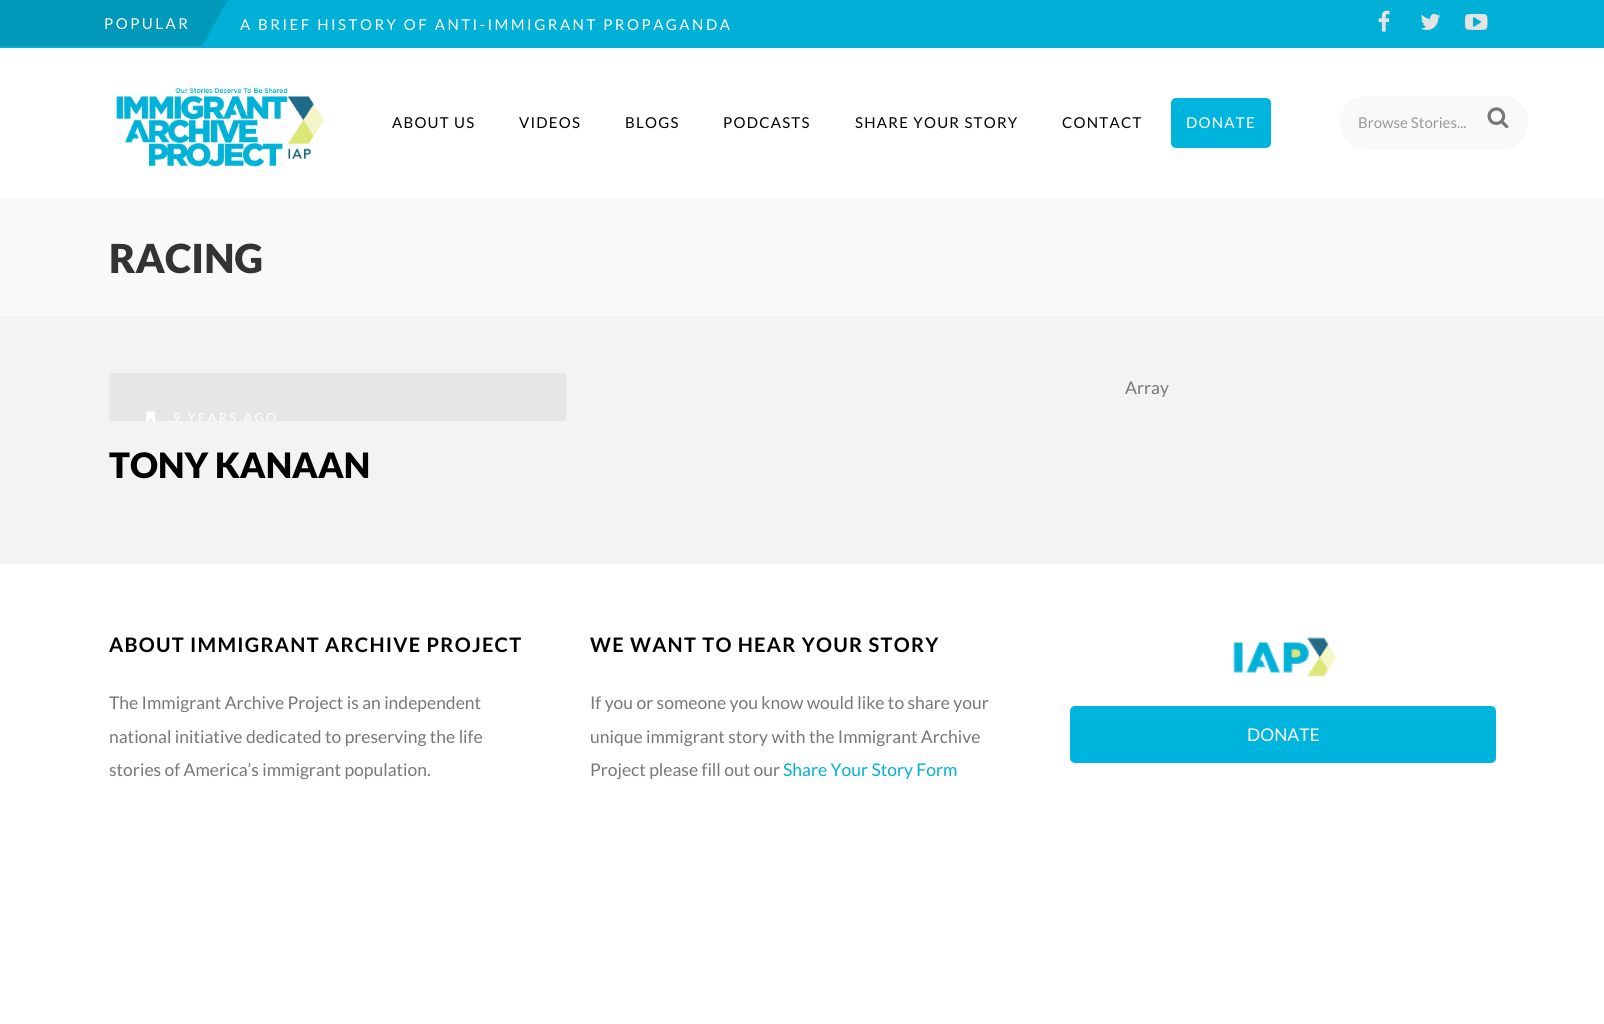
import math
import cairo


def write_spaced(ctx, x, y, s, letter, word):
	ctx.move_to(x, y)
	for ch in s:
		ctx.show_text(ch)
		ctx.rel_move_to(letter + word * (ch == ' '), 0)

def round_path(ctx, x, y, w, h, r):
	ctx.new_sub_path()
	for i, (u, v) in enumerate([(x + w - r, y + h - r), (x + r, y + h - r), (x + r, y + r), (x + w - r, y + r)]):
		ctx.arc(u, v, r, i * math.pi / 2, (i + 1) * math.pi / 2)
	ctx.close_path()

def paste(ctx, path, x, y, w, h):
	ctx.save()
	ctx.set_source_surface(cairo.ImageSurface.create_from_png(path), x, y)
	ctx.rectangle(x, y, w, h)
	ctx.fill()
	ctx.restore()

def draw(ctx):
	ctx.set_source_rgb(1, 1, 1)
	ctx.paint()
	ctx.set_source_rgb(0, 0.69, 0.843)
	ctx.rectangle(0, 0, 1604, 48)
	ctx.fill()
	ctx.set_source_rgb(0, 0.6, 0.729)
	ctx.rectangle(0, 0, 203, 46)
	ctx.fill()
	ctx.select_font_face('Lato')
	ctx.set_font_size(15)
	ctx.set_source_rgb(1, 1, 1)
	write_spaced(ctx, 104, 29, 'POPULAR', 2.5, 0)
	ctx.set_source_rgb(0, 0.6, 0.729)
	ctx.new_path()
	ctx.move_to(202, 0)
	ctx.line_to(228, 0)
	ctx.line_to(202, 46)
	ctx.close_path()
	ctx.fill()
	ctx.set_source_rgb(1, 1, 1)
	write_spaced(ctx, 240, 30, 'A BRIEF HISTORY OF ANTI-IMMIGRANT PROPAGANDA', 2.5, 0)
	paste(ctx, 'media/1.png', 1378, 10, 12, 22)
	paste(ctx, 'media/2.png', 1420, 13, 21, 17)
	paste(ctx, 'media/3.png', 1465, 13, 23, 17)
	paste(ctx, 'media/4.png', 116, 88, 208, 79)
	ctx.set_source_rgb(0, 0, 0)
	for x, y, s in [
		(392, 128, 'ABOUT US'),
		(519, 128, 'VIDEOS'),
		(625, 128, 'BLOGS'),
		(723, 128, 'PODCASTS'),
		(855, 128, 'SHARE YOUR STORY'),
		(1062, 128, 'CONTACT'),
	]:
		write_spaced(ctx, x, y, s, 1.25, 0)
	ctx.set_source_rgb(0, 0.71, 0.867)
	round_path(ctx, 1171, 98, 100, 50, 5)
	ctx.fill()
	ctx.set_source_rgb(1, 1, 1)
	write_spaced(ctx, 1186, 128, 'DONATE', 1.25, 0)
	ctx.set_source_rgb(0.976, 0.976, 0.976)
	round_path(ctx, 1340, 96, 188, 53, 25)
	ctx.fill()
	ctx.set_source_rgb(0.6, 0.6, 0.6)
	ctx.move_to(1358, 128)
	ctx.show_text('Browse Stories...')
	paste(ctx, 'media/5.png', 1487, 107, 22, 22)
	ctx.set_source_rgb(0.953, 0.953, 0.953)
	ctx.rectangle(0, 316, 1604, 248)
	ctx.fill()
	ctx.set_source_rgb(0.976, 0.976, 0.976)
	ctx.rectangle(0, 198, 1604, 118)
	ctx.fill()
	ctx.select_font_face('Lato Black')
	ctx.set_font_size(40)
	ctx.set_source_rgb(0.2, 0.2, 0.2)
	ctx.move_to(109, 273)
	ctx.show_text('RACING')
	ctx.select_font_face('Lato')
	ctx.set_font_size(17.5)
	ctx.set_source_rgb(0.467, 0.467, 0.467)
	ctx.move_to(1125, 394)
	ctx.show_text('Array')
	ctx.set_source_rgb(0.902, 0.902, 0.902)
	ctx.rectangle(109, 373, 457, 48)
	ctx.fill()
	paste(ctx, 'media/6.png', 146, 411, 10, 10)
	ctx.save()
	ctx.rectangle(109, 373, 457, 48)
	ctx.clip()
	ctx.set_font_size(12.5)
	ctx.set_source_rgb(1, 1, 1)
	write_spaced(ctx, 173, 422, '9 YEARS AGO', 2.5, 0)
	ctx.restore()
	ctx.select_font_face('Lato Black')
	ctx.set_font_size(35)
	ctx.set_source_rgb(0, 0, 0)
	ctx.move_to(109, 478)
	ctx.show_text('TONY KANAAN')
	ctx.select_font_face('Lato', cairo.FONT_SLANT_NORMAL, cairo.FONT_WEIGHT_BOLD)
	ctx.set_font_size(20)
	write_spaced(ctx, 109, 652, 'ABOUT IMMIGRANT ARCHIVE PROJECT', 1.25, 0)
	ctx.select_font_face('Lato')
	ctx.set_font_size(17.5)
	ctx.set_source_rgb(0.467, 0.467, 0.467)
	for x, y, s in [
		(109, 709, 'The Immigrant Archive Project is an independent'),
		(109, 743, 'national initiative dedicated to preserving the life'),
		(109, 776, 'stories of America’s immigrant population.'),
	]:
		ctx.move_to(x, y)
		ctx.show_text(s)
	ctx.select_font_face('Lato', cairo.FONT_SLANT_NORMAL, cairo.FONT_WEIGHT_BOLD)
	ctx.set_font_size(20)
	ctx.set_source_rgb(0, 0, 0)
	write_spaced(ctx, 590, 652, 'WE WANT TO HEAR YOUR STORY', 1.25, 0)
	ctx.select_font_face('Lato')
	ctx.set_font_size(17.5)
	ctx.set_source_rgb(0.467, 0.467, 0.467)
	for x, y, s in [
		(590, 709, 'If you or someone you know would like to share your'),
		(590, 743, 'unique immigrant story with the Immigrant Archive'),
		(590, 776, 'Project please fill out our'),
	]:
		ctx.move_to(x, y)
		ctx.show_text(s)
	ctx.set_source_rgb(0, 0.69, 0.843)
	ctx.move_to(783, 776)
	ctx.show_text('Share Your Story Form')
	paste(ctx, 'media/7.png', 1233, 637, 104, 40)
	ctx.set_source_rgb(0, 0.71, 0.867)
	round_path(ctx, 1070, 706, 426, 57, 5)
	ctx.fill()
	ctx.set_source_rgb(1, 1, 1)
	ctx.move_to(1247, 741)
	ctx.show_text('DONATE')


surface = cairo.ImageSurface(cairo.FORMAT_RGB24, 1604, 1024)
ctx = cairo.Context(surface)
options = cairo.FontOptions()
options.set_hint_metrics(cairo.HINT_METRICS_OFF)
options.set_hint_style(cairo.HINT_STYLE_NONE)
ctx.set_font_options(options)
ctx.set_miter_limit(4)
draw(ctx)
surface.write_to_png('image.png')
